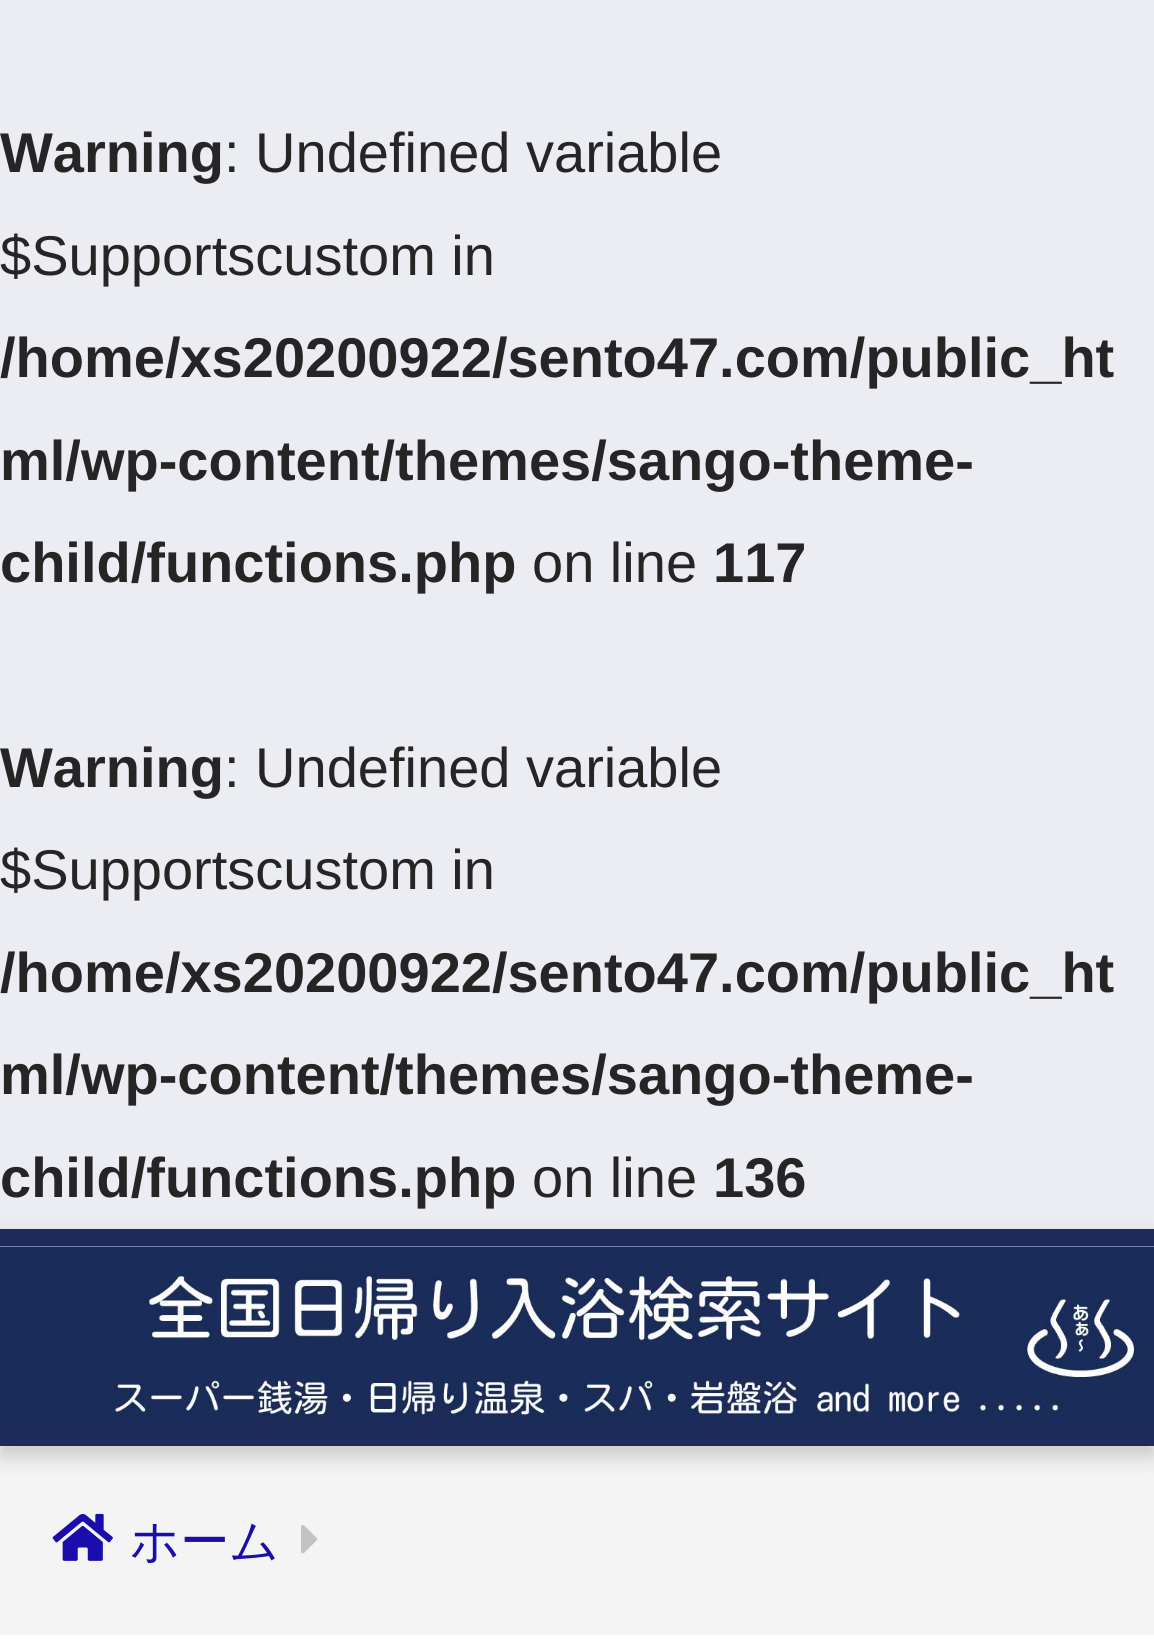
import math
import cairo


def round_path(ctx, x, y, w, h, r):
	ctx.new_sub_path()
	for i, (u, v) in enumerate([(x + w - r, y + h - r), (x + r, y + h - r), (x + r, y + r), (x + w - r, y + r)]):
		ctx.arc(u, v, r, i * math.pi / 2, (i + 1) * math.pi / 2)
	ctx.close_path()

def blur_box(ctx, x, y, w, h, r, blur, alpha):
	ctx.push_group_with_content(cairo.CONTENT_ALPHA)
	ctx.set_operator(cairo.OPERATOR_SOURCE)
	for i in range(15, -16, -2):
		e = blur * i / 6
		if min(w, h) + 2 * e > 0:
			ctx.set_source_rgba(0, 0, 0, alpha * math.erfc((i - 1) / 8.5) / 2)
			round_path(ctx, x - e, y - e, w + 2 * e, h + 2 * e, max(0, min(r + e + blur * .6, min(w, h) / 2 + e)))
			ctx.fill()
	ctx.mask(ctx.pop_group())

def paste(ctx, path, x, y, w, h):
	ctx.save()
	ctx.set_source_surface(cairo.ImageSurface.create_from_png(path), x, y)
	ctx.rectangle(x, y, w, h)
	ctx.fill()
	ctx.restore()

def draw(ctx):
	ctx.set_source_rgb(0.918, 0.929, 0.949)
	ctx.paint()
	ctx.select_font_face('Liberation Sans', cairo.FONT_SLANT_NORMAL, cairo.FONT_WEIGHT_BOLD)
	ctx.set_font_size(56)
	ctx.set_source_rgb(0.145, 0.145, 0.145)
	ctx.move_to(0, 172)
	ctx.show_text('Warning')
	ctx.select_font_face('Liberation Sans')
	ctx.move_to(224, 172)
	ctx.show_text(': Undefined variable')
	ctx.move_to(0, 275)
	ctx.show_text('$Supportscustom in')
	ctx.select_font_face('Liberation Sans', cairo.FONT_SLANT_NORMAL, cairo.FONT_WEIGHT_BOLD)
	for x, y, s in [
		(0, 377, '/home/xs20200922/sento47.com/public_ht'),
		(0, 480, 'ml/wp-content/themes/sango-theme-'),
		(0, 582, 'child/functions.php'),
	]:
		ctx.move_to(x, y)
		ctx.show_text(s)
	ctx.select_font_face('Liberation Sans')
	ctx.move_to(532, 582)
	ctx.show_text('on line')
	ctx.select_font_face('Liberation Sans', cairo.FONT_SLANT_NORMAL, cairo.FONT_WEIGHT_BOLD)
	ctx.move_to(713, 582)
	ctx.show_text('117')
	ctx.move_to(0, 787)
	ctx.show_text('Warning')
	ctx.select_font_face('Liberation Sans')
	ctx.move_to(224, 787)
	ctx.show_text(': Undefined variable')
	ctx.move_to(0, 889)
	ctx.show_text('$Supportscustom in')
	ctx.select_font_face('Liberation Sans', cairo.FONT_SLANT_NORMAL, cairo.FONT_WEIGHT_BOLD)
	for x, y, s in [
		(0, 992, '/home/xs20200922/sento47.com/public_ht'),
		(0, 1094, 'ml/wp-content/themes/sango-theme-'),
		(0, 1197, 'child/functions.php'),
	]:
		ctx.move_to(x, y)
		ctx.show_text(s)
	ctx.select_font_face('Liberation Sans')
	ctx.move_to(532, 1197)
	ctx.show_text('on line')
	ctx.select_font_face('Liberation Sans', cairo.FONT_SLANT_NORMAL, cairo.FONT_WEIGHT_BOLD)
	ctx.move_to(713, 1197)
	ctx.show_text('136')
	ctx.set_source_rgb(0.957, 0.957, 0.957)
	ctx.rectangle(0, 1446, 1154, 189)
	ctx.fill()
	ctx.set_source_rgb(0, 0, 0)
	blur_box(ctx, 0, 1239, 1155, 217, 0, 10.5, 0.18)
	ctx.set_source_rgb(0.11, 0.169, 0.349)
	ctx.rectangle(0, 1229, 1154, 217)
	ctx.fill()
	paste(ctx, 'media/1.png', 0, 1246, 1154, 175)
	ctx.set_source_rgb(1, 1, 1)
	ctx.rectangle(0, 1635, 1154, 9)
	ctx.fill()
	paste(ctx, 'media/2.png', 52, 1513, 61, 48)
	ctx.select_font_face('WenQuanYi Zen Hei Medium')
	ctx.set_font_size(49)
	ctx.set_source_rgb(0.102, 0.051, 0.671)
	ctx.move_to(130, 1558)
	ctx.show_text('ホーム')
	paste(ctx, 'media/3.png', 301, 1525, 16, 29)


surface = cairo.ImageSurface(cairo.FORMAT_RGB24, 1154, 1644)
ctx = cairo.Context(surface)
options = cairo.FontOptions()
options.set_hint_metrics(cairo.HINT_METRICS_OFF)
options.set_hint_style(cairo.HINT_STYLE_NONE)
ctx.set_font_options(options)
ctx.set_miter_limit(4)
draw(ctx)
surface.write_to_png('image.png')
